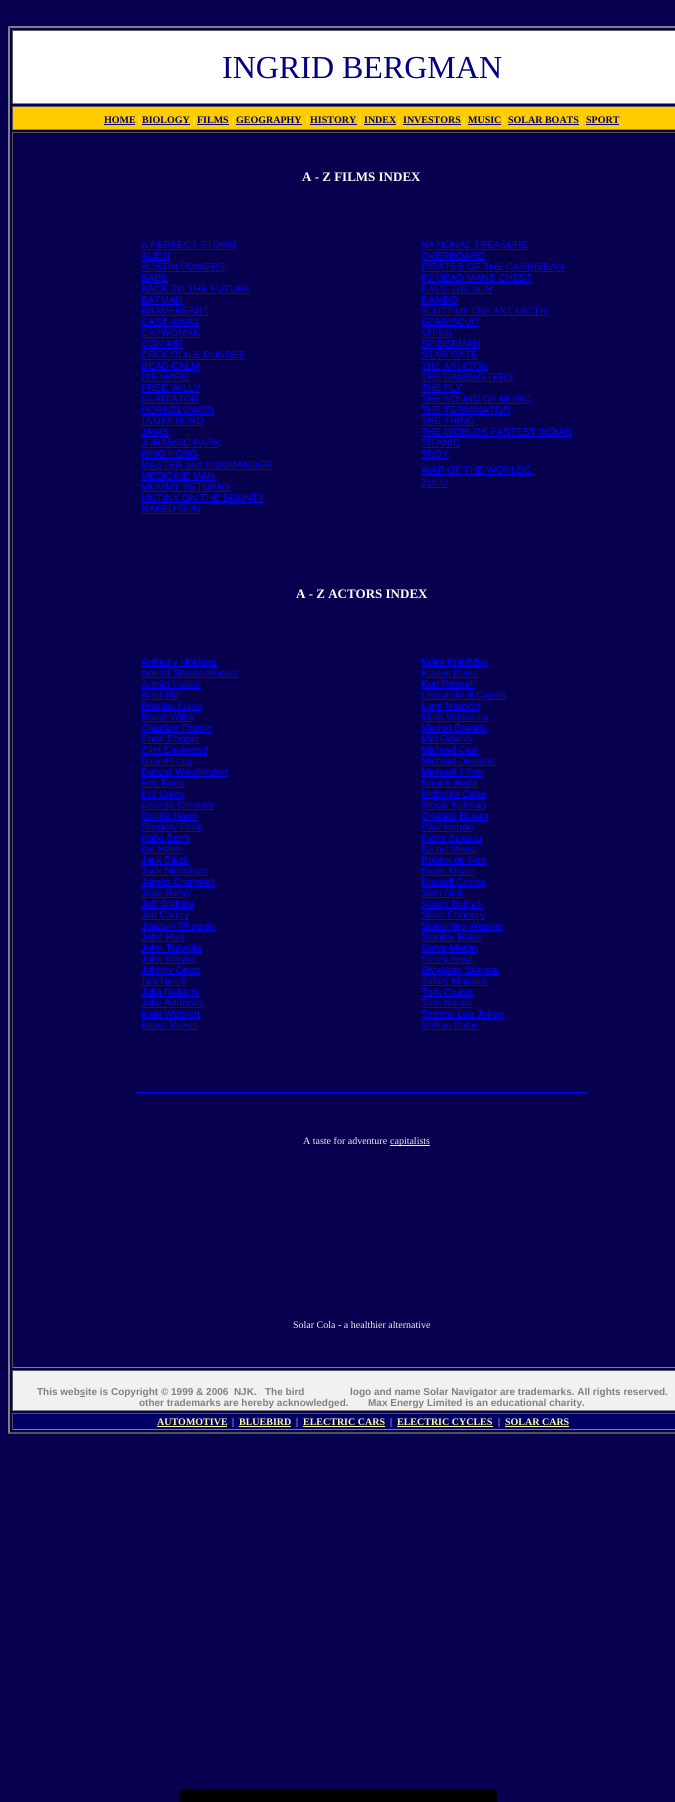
import math
import cairo


def draw(ctx):
	ctx.set_source_rgb(0.027, 0, 0.31)
	ctx.paint()
	ctx.set_source_rgb(0.502, 0.502, 0.502)
	ctx.new_path()
	ctx.move_to(8, 26)
	ctx.line_to(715, 26)
	ctx.line_to(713, 28)
	ctx.line_to(10, 28)
	ctx.close_path()
	ctx.fill()
	ctx.set_source_rgb(0.333, 0.333, 0.333)
	ctx.new_path()
	ctx.move_to(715, 1434)
	ctx.line_to(8, 1434)
	ctx.line_to(10, 1432)
	ctx.line_to(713, 1432)
	ctx.close_path()
	ctx.fill()
	ctx.set_source_rgb(0.502, 0.502, 0.502)
	ctx.new_path()
	ctx.move_to(8, 1434)
	ctx.line_to(8, 26)
	ctx.line_to(10, 28)
	ctx.line_to(10, 1432)
	ctx.close_path()
	ctx.fill()
	ctx.set_source_rgb(1, 1, 1)
	ctx.rectangle(13, 31, 662, 72)
	ctx.fill()
	ctx.set_source_rgb(0.333, 0.333, 0.333)
	ctx.rectangle(12, 30, 663, 1)
	ctx.fill()
	ctx.set_source_rgb(0.502, 0.502, 0.502)
	ctx.rectangle(12, 103, 663, 1)
	ctx.fill()
	ctx.set_source_rgb(0.333, 0.333, 0.333)
	ctx.rectangle(12, 30, 1, 74)
	ctx.fill()
	ctx.select_font_face('Liberation Serif')
	ctx.set_font_size(32)
	ctx.set_source_rgb(0, 0, 0.502)
	ctx.move_to(222, 78)
	ctx.show_text('INGRID BERGMAN')
	ctx.set_source_rgb(1, 0.8, 0)
	ctx.rectangle(13, 107, 662, 22)
	ctx.fill()
	ctx.set_source_rgb(0.333, 0.333, 0.333)
	ctx.rectangle(12, 106, 663, 1)
	ctx.fill()
	ctx.set_source_rgb(0.502, 0.502, 0.502)
	ctx.rectangle(12, 129, 663, 1)
	ctx.fill()
	ctx.set_source_rgb(0.333, 0.333, 0.333)
	ctx.rectangle(12, 106, 1, 24)
	ctx.fill()
	ctx.select_font_face('Liberation Serif', cairo.FONT_SLANT_NORMAL, cairo.FONT_WEIGHT_BOLD)
	ctx.set_font_size(10)
	ctx.set_source_rgb(0, 0, 0.502)
	ctx.move_to(104, 123)
	ctx.show_text('HOME')
	ctx.rectangle(104, 124, 31, 1)
	ctx.fill()
	ctx.select_font_face('Liberation Serif')
	ctx.set_source_rgb(1, 1, 0.6)
	ctx.move_to(138, 123)
	ctx.show_text('|')
	ctx.set_source_rgb(0, 0, 0.502)
	ctx.rectangle(142, 124, 48, 1)
	ctx.fill()
	ctx.select_font_face('Liberation Serif', cairo.FONT_SLANT_NORMAL, cairo.FONT_WEIGHT_BOLD)
	ctx.move_to(142, 123)
	ctx.show_text('BIOLOGY')
	ctx.set_source_rgb(1, 1, 0.6)
	ctx.move_to(193, 123)
	ctx.show_text('|')
	ctx.set_source_rgb(0, 0, 0.502)
	ctx.move_to(197, 123)
	ctx.show_text('FILMS')
	ctx.rectangle(197, 124, 32, 1)
	ctx.fill()
	ctx.set_source_rgb(1, 1, 0.6)
	ctx.move_to(232, 123)
	ctx.show_text('|')
	ctx.set_source_rgb(0, 0, 0.502)
	ctx.rectangle(236, 124, 66, 1)
	ctx.fill()
	ctx.move_to(236, 123)
	ctx.show_text('GEOGRAPHY')
	ctx.select_font_face('Liberation Serif')
	ctx.set_source_rgb(1, 1, 0.6)
	ctx.move_to(306, 123)
	ctx.show_text('|')
	ctx.set_source_rgb(0, 0, 0.502)
	ctx.rectangle(310, 124, 47, 1)
	ctx.fill()
	ctx.select_font_face('Liberation Serif', cairo.FONT_SLANT_NORMAL, cairo.FONT_WEIGHT_BOLD)
	ctx.move_to(310, 123)
	ctx.show_text('HISTORY')
	ctx.select_font_face('Liberation Serif')
	ctx.set_source_rgb(1, 1, 0.6)
	ctx.move_to(359, 123)
	ctx.show_text('|')
	ctx.set_source_rgb(0, 0, 0.502)
	ctx.rectangle(364, 124, 32, 1)
	ctx.fill()
	ctx.select_font_face('Liberation Serif', cairo.FONT_SLANT_NORMAL, cairo.FONT_WEIGHT_BOLD)
	ctx.move_to(364, 123)
	ctx.show_text('INDEX')
	ctx.select_font_face('Liberation Serif')
	ctx.set_source_rgb(1, 1, 0.6)
	ctx.move_to(398, 123)
	ctx.show_text('|')
	ctx.select_font_face('Liberation Serif', cairo.FONT_SLANT_NORMAL, cairo.FONT_WEIGHT_BOLD)
	ctx.set_source_rgb(0, 0, 0.502)
	ctx.move_to(403, 123)
	ctx.show_text('INVESTORS')
	ctx.rectangle(403, 124, 58, 1)
	ctx.fill()
	ctx.select_font_face('Liberation Serif')
	ctx.set_source_rgb(1, 1, 0.6)
	ctx.move_to(463, 123)
	ctx.show_text('|')
	ctx.select_font_face('Liberation Serif', cairo.FONT_SLANT_NORMAL, cairo.FONT_WEIGHT_BOLD)
	ctx.set_source_rgb(0, 0, 0.502)
	ctx.move_to(468, 123)
	ctx.show_text('MUSIC')
	ctx.rectangle(468, 124, 33, 1)
	ctx.fill()
	ctx.select_font_face('Liberation Serif')
	ctx.set_source_rgb(1, 1, 0.6)
	ctx.move_to(503, 123)
	ctx.show_text('|')
	ctx.select_font_face('Liberation Serif', cairo.FONT_SLANT_NORMAL, cairo.FONT_WEIGHT_BOLD)
	ctx.set_source_rgb(0, 0, 0.502)
	ctx.move_to(508, 123)
	ctx.show_text('SOLAR BOATS')
	ctx.rectangle(508, 124, 71, 1)
	ctx.fill()
	ctx.select_font_face('Liberation Serif')
	ctx.set_source_rgb(1, 1, 0.6)
	ctx.move_to(581, 123)
	ctx.show_text('|')
	ctx.select_font_face('Liberation Serif', cairo.FONT_SLANT_NORMAL, cairo.FONT_WEIGHT_BOLD)
	ctx.set_source_rgb(0, 0, 0.502)
	ctx.move_to(586, 123)
	ctx.show_text('SPORT')
	ctx.rectangle(586, 124, 33, 1)
	ctx.fill()
	ctx.set_source_rgb(0.333, 0.333, 0.333)
	ctx.rectangle(12, 132, 663, 1)
	ctx.fill()
	ctx.set_source_rgb(0.502, 0.502, 0.502)
	ctx.rectangle(12, 1367, 663, 1)
	ctx.fill()
	ctx.set_source_rgb(0.333, 0.333, 0.333)
	ctx.rectangle(12, 132, 1, 1236)
	ctx.fill()
	ctx.set_font_size(13)
	ctx.set_source_rgb(1, 1, 1)
	ctx.move_to(302, 181)
	ctx.show_text('A - Z FILMS INDEX')
	ctx.select_font_face('Liberation Sans')
	ctx.set_font_size(10)
	ctx.set_source_rgb(0, 0, 1)
	ctx.move_to(141, 248)
	ctx.show_text('A PERFECT STORM')
	ctx.rectangle(141, 249, 95, 1)
	ctx.fill()
	ctx.move_to(141, 259)
	ctx.show_text('ALIEN')
	ctx.rectangle(141, 260, 29, 1)
	ctx.fill()
	ctx.move_to(141, 270)
	ctx.show_text('AUSTIN POWERS')
	ctx.rectangle(141, 271, 84, 1)
	ctx.fill()
	ctx.move_to(141, 281)
	ctx.show_text('BABE')
	ctx.rectangle(141, 282, 27, 1)
	ctx.fill()
	ctx.move_to(141, 292)
	ctx.show_text('BACK TO THE FUTURE')
	ctx.rectangle(141, 293, 110, 1)
	ctx.fill()
	ctx.move_to(141, 303)
	ctx.show_text('BATMAN')
	ctx.rectangle(141, 304, 42, 1)
	ctx.fill()
	ctx.move_to(141, 314)
	ctx.show_text('BRAVEHEART')
	ctx.rectangle(141, 315, 68, 1)
	ctx.fill()
	ctx.move_to(141, 325)
	ctx.show_text('CAST AWAY')
	ctx.rectangle(141, 326, 59, 1)
	ctx.fill()
	ctx.move_to(141, 336)
	ctx.show_text('CATWOMAN')
	ctx.rectangle(141, 337, 59, 1)
	ctx.fill()
	ctx.move_to(141, 347)
	ctx.show_text('CON AIR')
	ctx.rectangle(141, 348, 42, 1)
	ctx.fill()
	ctx.move_to(141, 358)
	ctx.show_text('CROCODILE DUNDEE')
	ctx.rectangle(141, 359, 104, 1)
	ctx.fill()
	ctx.move_to(141, 369)
	ctx.show_text('DEAD CALM')
	ctx.rectangle(141, 370, 58, 1)
	ctx.fill()
	ctx.move_to(141, 380)
	ctx.show_text('DIE HARD')
	ctx.rectangle(141, 381, 48, 1)
	ctx.fill()
	ctx.move_to(141, 391)
	ctx.show_text('FREE WILLY')
	ctx.rectangle(141, 392, 59, 1)
	ctx.fill()
	ctx.move_to(141, 402)
	ctx.show_text('GLADIATOR')
	ctx.rectangle(141, 403, 58, 1)
	ctx.fill()
	ctx.move_to(141, 413)
	ctx.show_text('HORNBLOWER')
	ctx.rectangle(141, 414, 73, 1)
	ctx.fill()
	ctx.select_font_face('Liberation Serif')
	ctx.move_to(141, 424)
	ctx.show_text('JAMES BOND')
	ctx.rectangle(141, 425, 63, 1)
	ctx.fill()
	ctx.select_font_face('Liberation Sans')
	ctx.move_to(141, 435)
	ctx.show_text('JAWS')
	ctx.rectangle(141, 436, 28, 1)
	ctx.fill()
	ctx.move_to(141, 446)
	ctx.show_text('JURASSIC PARK')
	ctx.rectangle(141, 447, 79, 1)
	ctx.fill()
	ctx.move_to(141, 457)
	ctx.show_text('KING KONG')
	ctx.rectangle(141, 458, 57, 1)
	ctx.fill()
	ctx.move_to(141, 468)
	ctx.show_text('MASTER and COMMANDER')
	ctx.rectangle(141, 469, 131, 1)
	ctx.fill()
	ctx.move_to(141, 479)
	ctx.show_text('MEDICINE MAN')
	ctx.rectangle(141, 480, 74, 1)
	ctx.fill()
	ctx.move_to(141, 490)
	ctx.show_text('MUMMY RETURNS')
	ctx.rectangle(141, 491, 90, 1)
	ctx.fill()
	ctx.move_to(141, 501)
	ctx.show_text('MUTINY ON THE BOUNTY')
	ctx.rectangle(141, 502, 123, 1)
	ctx.fill()
	ctx.move_to(141, 512)
	ctx.show_text('NAKED GUN')
	ctx.rectangle(141, 513, 59, 1)
	ctx.fill()
	ctx.move_to(421, 248)
	ctx.show_text('NATIONAL TREASURE')
	ctx.rectangle(421, 249, 107, 1)
	ctx.fill()
	ctx.move_to(421, 259)
	ctx.show_text('OVERBOARD')
	ctx.rectangle(421, 260, 64, 1)
	ctx.fill()
	ctx.move_to(421, 270)
	ctx.show_text('PIRATES OF THE CARIBBEAN')
	ctx.rectangle(421, 271, 143, 1)
	ctx.fill()
	ctx.move_to(421, 281)
	ctx.show_text('P2 DEAD MANS CHEST')
	ctx.rectangle(421, 282, 111, 1)
	ctx.fill()
	ctx.select_font_face('Liberation Serif')
	ctx.move_to(421, 292)
	ctx.show_text('RACE THE SUN')
	ctx.rectangle(421, 293, 71, 1)
	ctx.fill()
	ctx.select_font_face('Liberation Sans')
	ctx.move_to(421, 303)
	ctx.show_text('RAMBO')
	ctx.rectangle(421, 304, 37, 1)
	ctx.fill()
	ctx.select_font_face('Liberation Serif')
	ctx.move_to(421, 314)
	ctx.show_text('SCOTT OF THE ANTARCTIC')
	ctx.rectangle(421, 315, 129, 1)
	ctx.fill()
	ctx.select_font_face('Liberation Sans')
	ctx.move_to(421, 325)
	ctx.show_text('SEABISCUIT')
	ctx.rectangle(421, 326, 59, 1)
	ctx.fill()
	ctx.select_font_face('Liberation Serif')
	ctx.move_to(421, 336)
	ctx.show_text('SPEED')
	ctx.rectangle(421, 337, 31, 1)
	ctx.fill()
	ctx.select_font_face('Liberation Sans')
	ctx.move_to(421, 347)
	ctx.show_text('SPIDERMAN')
	ctx.rectangle(421, 348, 59, 1)
	ctx.fill()
	ctx.move_to(421, 358)
	ctx.show_text('STAR GATE')
	ctx.rectangle(421, 359, 57, 1)
	ctx.fill()
	ctx.select_font_face('Liberation Serif')
	ctx.move_to(421, 369)
	ctx.show_text('THE AVIATOR')
	ctx.rectangle(421, 370, 67, 1)
	ctx.fill()
	ctx.select_font_face('Liberation Sans')
	ctx.move_to(421, 380)
	ctx.show_text('THE DAMBUSTERS')
	ctx.rectangle(421, 381, 92, 1)
	ctx.fill()
	ctx.move_to(421, 391)
	ctx.show_text('THE FLY')
	ctx.rectangle(421, 392, 41, 1)
	ctx.fill()
	ctx.move_to(421, 402)
	ctx.show_text('THE SOUND OF MUSIC')
	ctx.rectangle(421, 403, 111, 1)
	ctx.fill()
	ctx.move_to(421, 413)
	ctx.show_text('THE TERMINATOR')
	ctx.rectangle(421, 414, 89, 1)
	ctx.fill()
	ctx.move_to(421, 424)
	ctx.show_text('THE THING')
	ctx.rectangle(421, 425, 54, 1)
	ctx.fill()
	ctx.move_to(421, 435)
	ctx.show_text('THE WORLDS FASTEST INDIAN')
	ctx.rectangle(421, 436, 151, 1)
	ctx.fill()
	ctx.move_to(421, 446)
	ctx.show_text('TITANIC')
	ctx.rectangle(421, 447, 39, 1)
	ctx.fill()
	ctx.move_to(421, 457)
	ctx.show_text('TROY')
	ctx.rectangle(421, 458, 28, 1)
	ctx.fill()
	ctx.move_to(421, 473)
	ctx.show_text('WAR OF THE WORLDS')
	ctx.rectangle(421, 474, 113, 1)
	ctx.fill()
	ctx.move_to(421, 486)
	ctx.show_text('ZULU')
	ctx.rectangle(421, 487, 26, 1)
	ctx.fill()
	ctx.select_font_face('Liberation Serif', cairo.FONT_SLANT_NORMAL, cairo.FONT_WEIGHT_BOLD)
	ctx.set_font_size(13)
	ctx.set_source_rgb(1, 1, 1)
	ctx.move_to(296, 598)
	ctx.show_text('A - Z ACTORS INDEX')
	ctx.set_source_rgb(0, 0, 1)
	ctx.rectangle(141, 666, 76, 1)
	ctx.fill()
	ctx.select_font_face('Liberation Sans')
	ctx.set_font_size(10)
	ctx.move_to(141, 665)
	ctx.show_text('Anthony Hopkins')
	ctx.rectangle(141, 677, 98, 1)
	ctx.fill()
	ctx.move_to(141, 676)
	ctx.show_text('Arnold Shwazenneger')
	ctx.select_font_face('Liberation Serif')
	ctx.move_to(141, 687)
	ctx.show_text('Arnold Vosloo')
	ctx.rectangle(141, 688, 60, 1)
	ctx.fill()
	ctx.select_font_face('Liberation Sans')
	ctx.move_to(141, 698)
	ctx.show_text('Brad Pitt')
	ctx.rectangle(141, 699, 38, 1)
	ctx.fill()
	ctx.select_font_face('Liberation Serif')
	ctx.move_to(141, 709)
	ctx.show_text('Brendan Fraser')
	ctx.rectangle(141, 710, 61, 1)
	ctx.fill()
	ctx.select_font_face('Liberation Sans')
	ctx.move_to(141, 720)
	ctx.show_text('Bruce Willis')
	ctx.rectangle(141, 721, 52, 1)
	ctx.fill()
	ctx.move_to(141, 731)
	ctx.show_text('Charlize Theron')
	ctx.rectangle(141, 732, 71, 1)
	ctx.fill()
	ctx.rectangle(141, 743, 59, 1)
	ctx.fill()
	ctx.move_to(141, 742)
	ctx.show_text('Chris Cooper')
	ctx.move_to(141, 753)
	ctx.show_text('Clint Eastwood')
	ctx.rectangle(141, 754, 67, 1)
	ctx.fill()
	ctx.rectangle(141, 765, 51, 1)
	ctx.fill()
	ctx.select_font_face('Liberation Serif')
	ctx.move_to(141, 764)
	ctx.show_text('Daniel Craig')
	ctx.rectangle(141, 776, 87, 1)
	ctx.fill()
	ctx.select_font_face('Liberation Sans')
	ctx.move_to(141, 775)
	ctx.show_text('Denzel Washington')
	ctx.move_to(141, 786)
	ctx.show_text('Eric Bana')
	ctx.rectangle(141, 787, 43, 1)
	ctx.fill()
	ctx.select_font_face('Liberation Serif')
	ctx.move_to(141, 797)
	ctx.show_text('Eva Green')
	ctx.rectangle(141, 798, 42, 1)
	ctx.fill()
	ctx.rectangle(141, 809, 73, 1)
	ctx.fill()
	ctx.select_font_face('Liberation Sans')
	ctx.move_to(141, 808)
	ctx.show_text('George Clooney')
	ctx.move_to(141, 819)
	ctx.show_text('Goldie Hawn')
	ctx.rectangle(141, 820, 57, 1)
	ctx.fill()
	ctx.rectangle(141, 831, 61, 1)
	ctx.fill()
	ctx.move_to(141, 830)
	ctx.show_text('Gregory Peck')
	ctx.rectangle(141, 842, 49, 1)
	ctx.fill()
	ctx.move_to(141, 841)
	ctx.show_text('Halle Berry')
	ctx.move_to(141, 852)
	ctx.show_text('Ian Holm')
	ctx.rectangle(141, 853, 40, 1)
	ctx.fill()
	ctx.move_to(141, 863)
	ctx.show_text('Jack Black')
	ctx.rectangle(141, 864, 48, 1)
	ctx.fill()
	ctx.move_to(141, 874)
	ctx.show_text('Jack Nicholson')
	ctx.rectangle(141, 875, 67, 1)
	ctx.fill()
	ctx.move_to(141, 885)
	ctx.show_text('James Cromwell')
	ctx.rectangle(141, 886, 74, 1)
	ctx.fill()
	ctx.move_to(141, 896)
	ctx.show_text('Jean Reno')
	ctx.rectangle(141, 897, 48, 1)
	ctx.fill()
	ctx.rectangle(141, 908, 53, 1)
	ctx.fill()
	ctx.move_to(141, 907)
	ctx.show_text('Jeff Bridges')
	ctx.rectangle(141, 919, 48, 1)
	ctx.fill()
	ctx.move_to(141, 918)
	ctx.show_text('Jim Carrey')
	ctx.rectangle(141, 930, 74, 1)
	ctx.fill()
	ctx.move_to(141, 929)
	ctx.show_text('Joaquin Phoenix')
	ctx.move_to(141, 940)
	ctx.show_text('John Hurt')
	ctx.rectangle(141, 941, 43, 1)
	ctx.fill()
	ctx.move_to(141, 951)
	ctx.show_text('John Travolta')
	ctx.rectangle(141, 952, 61, 1)
	ctx.fill()
	ctx.rectangle(141, 963, 56, 1)
	ctx.fill()
	ctx.move_to(141, 962)
	ctx.show_text('John Wayne')
	ctx.rectangle(141, 974, 59, 1)
	ctx.fill()
	ctx.move_to(141, 973)
	ctx.show_text('Johnny Depp')
	ctx.select_font_face('Liberation Serif')
	ctx.move_to(141, 984)
	ctx.show_text('Judi Dench')
	ctx.rectangle(141, 985, 45, 1)
	ctx.fill()
	ctx.select_font_face('Liberation Sans')
	ctx.move_to(141, 995)
	ctx.show_text('Julia Roberts')
	ctx.rectangle(141, 996, 58, 1)
	ctx.fill()
	ctx.move_to(141, 1006)
	ctx.show_text('Julie Andrews')
	ctx.rectangle(141, 1007, 62, 1)
	ctx.fill()
	ctx.move_to(141, 1017)
	ctx.show_text('Kate Winslett')
	ctx.rectangle(141, 1018, 59, 1)
	ctx.fill()
	ctx.select_font_face('Liberation Serif')
	ctx.move_to(141, 1028)
	ctx.show_text('Keanu Reeves')
	ctx.rectangle(141, 1029, 57, 1)
	ctx.fill()
	ctx.rectangle(421, 666, 67, 1)
	ctx.fill()
	ctx.select_font_face('Liberation Sans')
	ctx.move_to(421, 665)
	ctx.show_text('Keira Knightley')
	ctx.select_font_face('Liberation Serif')
	ctx.move_to(421, 676)
	ctx.show_text('Kirsten Dunst')
	ctx.rectangle(421, 677, 56, 1)
	ctx.fill()
	ctx.select_font_face('Liberation Sans')
	ctx.move_to(421, 687)
	ctx.show_text('Kurt Russell')
	ctx.rectangle(421, 688, 54, 1)
	ctx.fill()
	ctx.rectangle(421, 699, 85, 1)
	ctx.fill()
	ctx.move_to(421, 698)
	ctx.show_text('Leonardo di Caprio')
	ctx.move_to(421, 709)
	ctx.show_text('Liam Neeson')
	ctx.rectangle(421, 710, 59, 1)
	ctx.fill()
	ctx.select_font_face('Liberation Serif')
	ctx.move_to(421, 720)
	ctx.show_text('Mads Mikkelsen')
	ctx.rectangle(421, 721, 67, 1)
	ctx.fill()
	ctx.select_font_face('Liberation Sans')
	ctx.move_to(421, 731)
	ctx.show_text('Marlon Brando')
	ctx.rectangle(421, 732, 66, 1)
	ctx.fill()
	ctx.move_to(421, 742)
	ctx.show_text('Mel Gibson')
	ctx.rectangle(421, 743, 51, 1)
	ctx.fill()
	ctx.move_to(421, 753)
	ctx.show_text('Michael Cain')
	ctx.rectangle(421, 754, 58, 1)
	ctx.fill()
	ctx.rectangle(421, 765, 74, 1)
	ctx.fill()
	ctx.move_to(421, 764)
	ctx.show_text('Michael Douglas')
	ctx.move_to(421, 775)
	ctx.show_text('Michael J Fox')
	ctx.rectangle(421, 776, 62, 1)
	ctx.fill()
	ctx.move_to(421, 786)
	ctx.show_text('Naomi Watts')
	ctx.rectangle(421, 787, 57, 1)
	ctx.fill()
	ctx.rectangle(421, 798, 65, 1)
	ctx.fill()
	ctx.move_to(421, 797)
	ctx.show_text('Nicholas Cage')
	ctx.move_to(421, 808)
	ctx.show_text('Nicole Kidman')
	ctx.rectangle(421, 809, 64, 1)
	ctx.fill()
	ctx.move_to(421, 819)
	ctx.show_text('Orlando Bloom')
	ctx.rectangle(421, 820, 67, 1)
	ctx.fill()
	ctx.rectangle(421, 831, 52, 1)
	ctx.fill()
	ctx.move_to(421, 830)
	ctx.show_text('Paul Hogan')
	ctx.select_font_face('Liberation Serif')
	ctx.move_to(421, 841)
	ctx.show_text('Pierce Brosnan')
	ctx.rectangle(421, 842, 61, 1)
	ctx.fill()
	ctx.move_to(421, 852)
	ctx.show_text('Rachel Weisz')
	ctx.rectangle(421, 853, 55, 1)
	ctx.fill()
	ctx.select_font_face('Liberation Sans')
	ctx.move_to(421, 863)
	ctx.show_text('Robert de Niro')
	ctx.rectangle(421, 864, 65, 1)
	ctx.fill()
	ctx.rectangle(421, 875, 54, 1)
	ctx.fill()
	ctx.select_font_face('Liberation Serif')
	ctx.move_to(421, 874)
	ctx.show_text('Roger Moore')
	ctx.select_font_face('Liberation Sans')
	ctx.move_to(421, 885)
	ctx.show_text('Russell Crowe')
	ctx.rectangle(421, 886, 64, 1)
	ctx.fill()
	ctx.move_to(421, 896)
	ctx.show_text('Sam Neil')
	ctx.rectangle(421, 897, 41, 1)
	ctx.fill()
	ctx.select_font_face('Liberation Serif')
	ctx.move_to(421, 907)
	ctx.show_text('Sandra Bullock')
	ctx.rectangle(421, 908, 62, 1)
	ctx.fill()
	ctx.rectangle(421, 919, 64, 1)
	ctx.fill()
	ctx.select_font_face('Liberation Sans')
	ctx.move_to(421, 918)
	ctx.show_text('Sean Connery')
	ctx.rectangle(421, 930, 82, 1)
	ctx.fill()
	ctx.move_to(421, 929)
	ctx.show_text('Sigourney Weaver')
	ctx.rectangle(421, 941, 62, 1)
	ctx.fill()
	ctx.move_to(421, 940)
	ctx.show_text('Stanley Baker')
	ctx.move_to(421, 951)
	ctx.show_text('Steve Martin')
	ctx.rectangle(421, 952, 56, 1)
	ctx.fill()
	ctx.rectangle(421, 963, 52, 1)
	ctx.fill()
	ctx.select_font_face('Liberation Serif')
	ctx.move_to(421, 962)
	ctx.show_text('Steven Segal')
	ctx.rectangle(421, 974, 78, 1)
	ctx.fill()
	ctx.select_font_face('Liberation Sans')
	ctx.move_to(421, 973)
	ctx.show_text('Slyvester Stalone')
	ctx.rectangle(421, 985, 67, 1)
	ctx.fill()
	ctx.move_to(421, 984)
	ctx.show_text('Tobey Maguire')
	ctx.move_to(421, 995)
	ctx.show_text('Tom Cruise')
	ctx.rectangle(421, 996, 52, 1)
	ctx.fill()
	ctx.move_to(421, 1006)
	ctx.show_text('Tom Hanks')
	ctx.rectangle(421, 1007, 51, 1)
	ctx.fill()
	ctx.rectangle(421, 1018, 82, 1)
	ctx.fill()
	ctx.move_to(421, 1017)
	ctx.show_text('Tommy Lee Jones')
	ctx.select_font_face('Liberation Serif')
	ctx.move_to(421, 1028)
	ctx.show_text('Willem Dafoe')
	ctx.rectangle(421, 1029, 57, 1)
	ctx.fill()
	ctx.rectangle(135, 1092, 453, 1)
	ctx.fill()
	ctx.set_source_rgb(0.945, 0.945, 0.945)
	ctx.move_to(303, 1144)
	ctx.show_text('A taste for adventure')
	ctx.rectangle(390, 1145, 40, 1)
	ctx.fill()
	ctx.move_to(390, 1144)
	ctx.show_text('capitalists')
	ctx.move_to(293, 1328)
	ctx.show_text('Solar Cola - a healthier alternative')
	ctx.rectangle(13, 1371, 662, 39)
	ctx.fill()
	ctx.set_source_rgb(0.333, 0.333, 0.333)
	ctx.rectangle(12, 1370, 663, 1)
	ctx.fill()
	ctx.set_source_rgb(0.502, 0.502, 0.502)
	ctx.rectangle(12, 1410, 663, 1)
	ctx.fill()
	ctx.set_source_rgb(0.333, 0.333, 0.333)
	ctx.rectangle(12, 1370, 1, 41)
	ctx.fill()
	ctx.select_font_face('Liberation Sans', cairo.FONT_SLANT_NORMAL, cairo.FONT_WEIGHT_BOLD)
	ctx.set_source_rgb(0.502, 0.502, 0.502)
	ctx.move_to(37, 1395)
	ctx.show_text('This website is Copyright © 1999 & 2006  NJK.   The bird')
	ctx.rectangle(80, 1396, 5, 1)
	ctx.fill()
	for x, y, s in [
		(350, 1395, 'logo and name Solar Navigator are trademarks. All rights reserved.'),
		(139, 1406, 'other trademarks are hereby acknowledged.'),
		(368, 1406, 'Max Energy Limited is an educational charity.'),
	]:
		ctx.move_to(x, y)
		ctx.show_text(s)
	ctx.set_source_rgb(0, 0, 0.4)
	ctx.rectangle(13, 1414, 662, 15)
	ctx.fill()
	ctx.set_source_rgb(0.333, 0.333, 0.333)
	ctx.rectangle(12, 1413, 663, 1)
	ctx.fill()
	ctx.set_source_rgb(0.502, 0.502, 0.502)
	ctx.rectangle(12, 1429, 663, 1)
	ctx.fill()
	ctx.set_source_rgb(0.333, 0.333, 0.333)
	ctx.rectangle(12, 1413, 1, 17)
	ctx.fill()
	ctx.select_font_face('Liberation Serif', cairo.FONT_SLANT_NORMAL, cairo.FONT_WEIGHT_BOLD)
	ctx.set_source_rgb(1, 1, 0.6)
	ctx.move_to(157, 1425)
	ctx.show_text('AUTOMOTIVE')
	ctx.rectangle(157, 1426, 70, 1)
	ctx.fill()
	ctx.select_font_face('Liberation Serif')
	ctx.set_source_rgb(1, 1, 1)
	ctx.move_to(232, 1425)
	ctx.show_text('|')
	ctx.select_font_face('Liberation Serif', cairo.FONT_SLANT_NORMAL, cairo.FONT_WEIGHT_BOLD)
	ctx.set_source_rgb(1, 1, 0.6)
	ctx.move_to(239, 1425)
	ctx.show_text('BLUEBIRD')
	ctx.rectangle(239, 1426, 52, 1)
	ctx.fill()
	ctx.select_font_face('Liberation Serif')
	ctx.set_source_rgb(1, 1, 1)
	ctx.move_to(296, 1425)
	ctx.show_text('|')
	ctx.select_font_face('Liberation Serif', cairo.FONT_SLANT_NORMAL, cairo.FONT_WEIGHT_BOLD)
	ctx.set_source_rgb(1, 1, 0.6)
	ctx.move_to(303, 1425)
	ctx.show_text('ELECTRIC CARS')
	ctx.rectangle(303, 1426, 82, 1)
	ctx.fill()
	ctx.select_font_face('Liberation Serif')
	ctx.set_source_rgb(1, 1, 1)
	ctx.move_to(390, 1425)
	ctx.show_text('|')
	ctx.select_font_face('Liberation Serif', cairo.FONT_SLANT_NORMAL, cairo.FONT_WEIGHT_BOLD)
	ctx.set_source_rgb(1, 1, 0.6)
	ctx.move_to(397, 1425)
	ctx.show_text('ELECTRIC CYCLES')
	ctx.rectangle(397, 1426, 96, 1)
	ctx.fill()
	ctx.select_font_face('Liberation Serif')
	ctx.set_source_rgb(1, 1, 1)
	ctx.move_to(498, 1425)
	ctx.show_text('|')
	ctx.select_font_face('Liberation Serif', cairo.FONT_SLANT_NORMAL, cairo.FONT_WEIGHT_BOLD)
	ctx.set_source_rgb(1, 1, 0.6)
	ctx.move_to(505, 1425)
	ctx.show_text('SOLAR CARS')
	ctx.rectangle(505, 1426, 64, 1)
	ctx.fill()
	ctx.set_source_rgb(0, 0, 0)
	ctx.rectangle(179, 1790, 318, 12)
	ctx.fill()


surface = cairo.ImageSurface(cairo.FORMAT_RGB24, 675, 1802)
ctx = cairo.Context(surface)
options = cairo.FontOptions()
options.set_hint_metrics(cairo.HINT_METRICS_OFF)
options.set_hint_style(cairo.HINT_STYLE_NONE)
ctx.set_font_options(options)
ctx.set_miter_limit(4)
draw(ctx)
surface.write_to_png('image.png')
